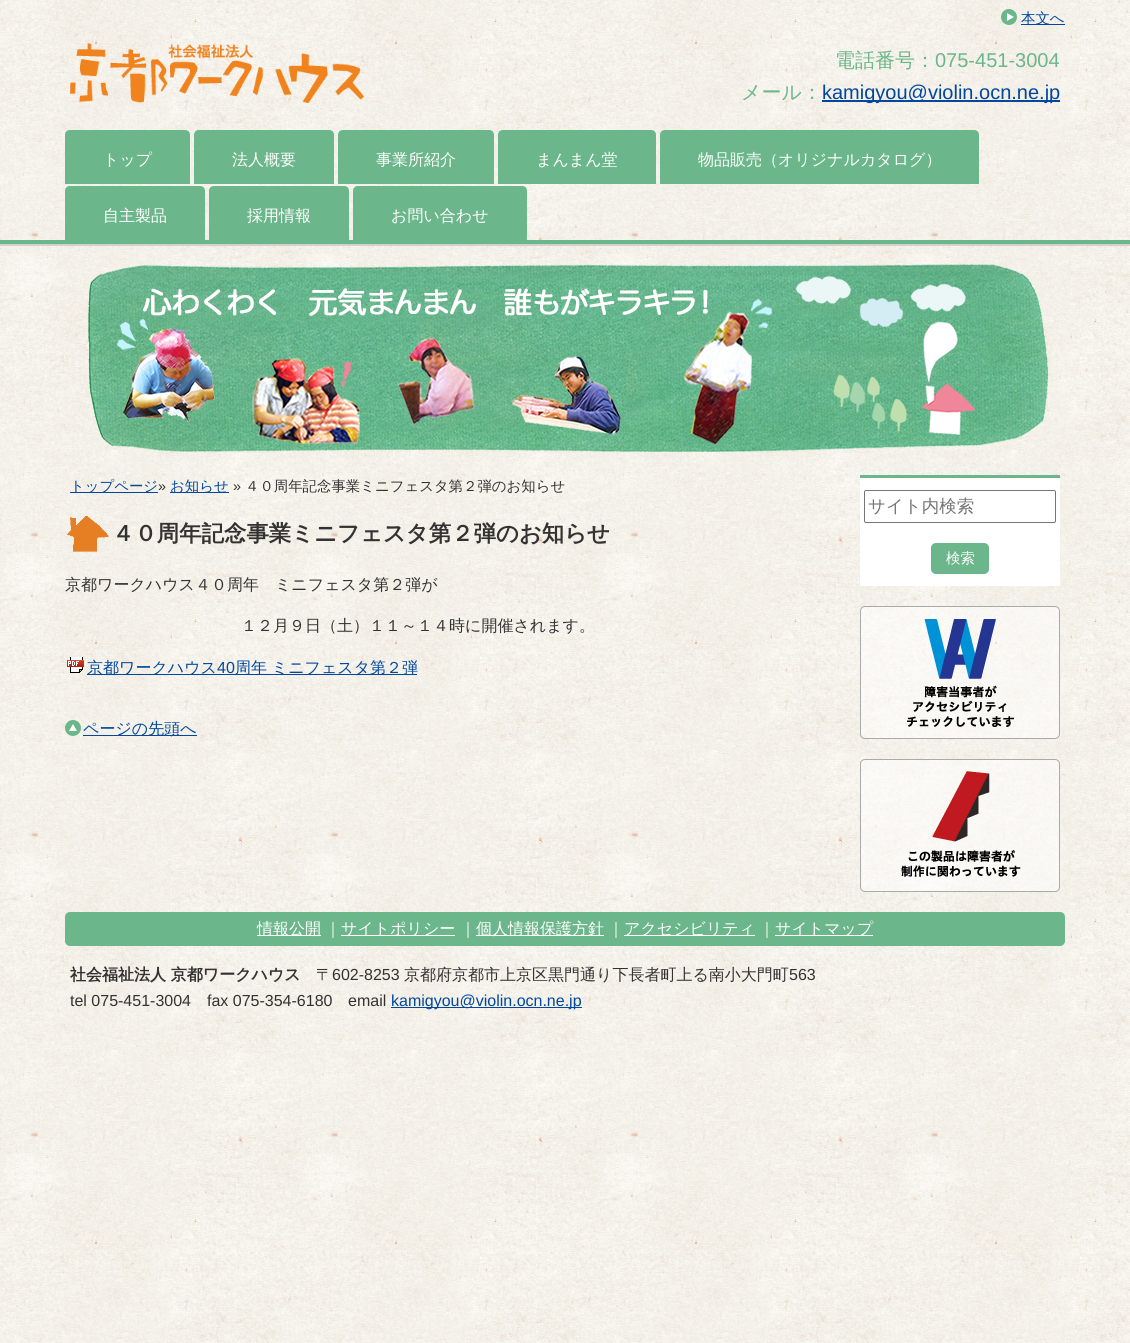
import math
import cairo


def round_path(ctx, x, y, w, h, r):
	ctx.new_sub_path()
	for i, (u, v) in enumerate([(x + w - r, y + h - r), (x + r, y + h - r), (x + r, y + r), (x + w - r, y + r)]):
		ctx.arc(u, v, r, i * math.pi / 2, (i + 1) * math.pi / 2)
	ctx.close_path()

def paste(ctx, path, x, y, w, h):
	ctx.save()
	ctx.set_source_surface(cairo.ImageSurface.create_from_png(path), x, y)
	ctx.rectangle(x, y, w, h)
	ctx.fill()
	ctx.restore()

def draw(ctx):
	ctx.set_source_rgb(1, 1, 1)
	ctx.paint()
	paste(ctx, 'media/1.png', 0, 0, 1130, 1343)
	ctx.set_source_rgb(0.42, 0.714, 0.541)
	ctx.rectangle(0, 240, 1130, 4)
	ctx.fill()
	ctx.arc(1009, 17, 8, 0, 2 * math.pi)
	ctx.fill()
	paste(ctx, 'media/2.png', 1007, 13, 7, 8)
	ctx.set_source_rgb(0, 0.278, 0.616)
	ctx.rectangle(1021, 24, 44, 1)
	ctx.fill()
	ctx.select_font_face('WenQuanYi Zen Hei Medium')
	ctx.set_font_size(14.4)
	ctx.move_to(1021, 23)
	ctx.show_text('本文へ')
	paste(ctx, 'media/3.png', 70, 43, 294, 60)
	ctx.set_font_size(20)
	ctx.set_source_rgb(0.42, 0.714, 0.541)
	ctx.move_to(835, 67)
	ctx.show_text('電話番号：')
	ctx.select_font_face('Liberation Sans')
	ctx.move_to(935, 67)
	ctx.show_text('075-451-3004')
	ctx.select_font_face('WenQuanYi Zen Hei Medium')
	ctx.move_to(741, 99)
	ctx.show_text('メール：')
	ctx.set_source_rgb(0, 0.278, 0.616)
	ctx.rectangle(822, 100, 238, 2)
	ctx.fill()
	ctx.select_font_face('Liberation Sans')
	ctx.move_to(822, 99)
	ctx.show_text('kamigyou@violin.ocn.ne.jp')
	ctx.set_source_rgb(0.42, 0.714, 0.541)
	ctx.new_path()
	ctx.move_to(70, 130)
	ctx.line_to(185, 130)
	ctx.curve_to(188, 130, 190, 132, 190, 135)
	ctx.line_to(190, 184)
	ctx.line_to(65, 184)
	ctx.line_to(65, 135)
	ctx.curve_to(65, 132, 67, 130, 70, 130)
	ctx.close_path()
	ctx.fill()
	ctx.select_font_face('WenQuanYi Zen Hei Medium')
	ctx.set_font_size(16)
	ctx.set_source_rgb(1, 1, 1)
	ctx.move_to(103, 165)
	ctx.show_text('トップ')
	ctx.set_source_rgb(0.42, 0.714, 0.541)
	ctx.new_path()
	ctx.move_to(199, 130)
	ctx.line_to(329, 130)
	ctx.curve_to(332, 130, 334, 132, 334, 135)
	ctx.line_to(334, 184)
	ctx.line_to(194, 184)
	ctx.line_to(194, 135)
	ctx.curve_to(194, 132, 196, 130, 199, 130)
	ctx.close_path()
	ctx.fill()
	ctx.set_source_rgb(1, 1, 1)
	ctx.move_to(232, 165)
	ctx.show_text('法人概要')
	ctx.set_source_rgb(0.42, 0.714, 0.541)
	ctx.new_path()
	ctx.move_to(343, 130)
	ctx.line_to(489, 130)
	ctx.curve_to(492, 130, 494, 132, 494, 135)
	ctx.line_to(494, 184)
	ctx.line_to(338, 184)
	ctx.line_to(338, 135)
	ctx.curve_to(338, 132, 340, 130, 343, 130)
	ctx.close_path()
	ctx.fill()
	ctx.set_source_rgb(1, 1, 1)
	ctx.move_to(376, 165)
	ctx.show_text('事業所紹介')
	ctx.set_source_rgb(0.42, 0.714, 0.541)
	ctx.new_path()
	ctx.move_to(503, 130)
	ctx.line_to(651, 130)
	ctx.curve_to(654, 130, 656, 132, 656, 135)
	ctx.line_to(656, 184)
	ctx.line_to(498, 184)
	ctx.line_to(498, 135)
	ctx.curve_to(498, 132, 500, 130, 503, 130)
	ctx.close_path()
	ctx.fill()
	ctx.set_source_rgb(1, 1, 1)
	ctx.move_to(536, 165)
	ctx.show_text('まんまん堂')
	ctx.set_source_rgb(0.42, 0.714, 0.541)
	ctx.new_path()
	ctx.move_to(665, 130)
	ctx.line_to(974, 130)
	ctx.curve_to(977, 130, 979, 132, 979, 135)
	ctx.line_to(979, 184)
	ctx.line_to(660, 184)
	ctx.line_to(660, 135)
	ctx.curve_to(660, 132, 662, 130, 665, 130)
	ctx.close_path()
	ctx.fill()
	ctx.set_source_rgb(1, 1, 1)
	ctx.move_to(698, 165)
	ctx.show_text('物品販売（オリジナルカタログ）')
	ctx.set_source_rgb(0.42, 0.714, 0.541)
	ctx.new_path()
	ctx.move_to(70, 186)
	ctx.line_to(200, 186)
	ctx.curve_to(203, 186, 205, 188, 205, 191)
	ctx.line_to(205, 240)
	ctx.line_to(65, 240)
	ctx.line_to(65, 191)
	ctx.curve_to(65, 188, 67, 186, 70, 186)
	ctx.close_path()
	ctx.fill()
	ctx.set_source_rgb(1, 1, 1)
	ctx.move_to(103, 221)
	ctx.show_text('自主製品')
	ctx.set_source_rgb(0.42, 0.714, 0.541)
	ctx.new_path()
	ctx.move_to(214, 186)
	ctx.line_to(344, 186)
	ctx.curve_to(347, 186, 349, 188, 349, 191)
	ctx.line_to(349, 240)
	ctx.line_to(209, 240)
	ctx.line_to(209, 191)
	ctx.curve_to(209, 188, 211, 186, 214, 186)
	ctx.close_path()
	ctx.fill()
	ctx.set_source_rgb(1, 1, 1)
	ctx.move_to(247, 221)
	ctx.show_text('採用情報')
	ctx.set_source_rgb(0.42, 0.714, 0.541)
	ctx.new_path()
	ctx.move_to(358, 186)
	ctx.line_to(522, 186)
	ctx.curve_to(525, 186, 527, 188, 527, 191)
	ctx.line_to(527, 240)
	ctx.line_to(353, 240)
	ctx.line_to(353, 191)
	ctx.curve_to(353, 188, 355, 186, 358, 186)
	ctx.close_path()
	ctx.fill()
	ctx.set_source_rgb(1, 1, 1)
	ctx.move_to(391, 221)
	ctx.show_text('お問い合わせ')
	ctx.set_source_rgb(0.824, 0.82, 0.796)
	ctx.rectangle(0, 244, 1130, 2)
	ctx.fill()
	paste(ctx, 'media/4.png', 88, 264, 961, 188)
	ctx.set_source_rgb(0, 0.278, 0.616)
	ctx.rectangle(70, 492, 88, 1)
	ctx.fill()
	ctx.set_font_size(14.4)
	ctx.move_to(70, 491)
	ctx.show_text('トップページ')
	ctx.select_font_face('Liberation Sans')
	ctx.set_source_rgb(0.196, 0.196, 0.196)
	ctx.move_to(158, 491)
	ctx.show_text('»')
	ctx.set_source_rgb(0, 0.278, 0.616)
	ctx.rectangle(170, 492, 59, 1)
	ctx.fill()
	ctx.select_font_face('WenQuanYi Zen Hei Medium')
	ctx.move_to(170, 491)
	ctx.show_text('お知らせ')
	ctx.select_font_face('Liberation Sans')
	ctx.set_source_rgb(0.196, 0.196, 0.196)
	ctx.move_to(233, 491)
	ctx.show_text('»')
	ctx.select_font_face('WenQuanYi Zen Hei Medium')
	ctx.move_to(245, 491)
	ctx.show_text('４０周年記念事業ミニフェスタ第２弾のお知らせ')
	paste(ctx, 'media/5.png', 67, 515, 42, 37)
	ctx.select_font_face('WenQuanYi Zen Hei', cairo.FONT_SLANT_NORMAL, cairo.FONT_WEIGHT_BOLD)
	ctx.set_font_size(22.4)
	ctx.move_to(112, 541)
	ctx.show_text('４０周年記念事業ミニフェスタ第２弾のお知らせ')
	ctx.select_font_face('WenQuanYi Zen Hei Medium')
	ctx.set_font_size(16)
	ctx.move_to(65, 590)
	ctx.show_text('京都ワークハウス４０周年　ミニフェスタ第２弾が')
	ctx.move_to(241, 631)
	ctx.show_text('１２月９日（土）１１～１４時に開催されます。')
	paste(ctx, 'media/6.png', 67, 657, 17, 16)
	ctx.set_source_rgb(0, 0.278, 0.616)
	ctx.rectangle(87, 674, 330, 1)
	ctx.fill()
	ctx.move_to(87, 673)
	ctx.show_text('京都ワークハウス')
	ctx.select_font_face('Liberation Sans')
	ctx.move_to(217, 673)
	ctx.show_text('40')
	ctx.select_font_face('WenQuanYi Zen Hei Medium')
	ctx.move_to(235, 673)
	ctx.show_text('周年 ミニフェスタ第２弾')
	ctx.set_source_rgb(0.42, 0.714, 0.541)
	ctx.new_path()
	ctx.arc(73, 728, 8, 0, 2 * math.pi)
	ctx.fill()
	paste(ctx, 'media/7.png', 69, 724, 8, 7)
	ctx.set_source_rgb(0, 0.278, 0.616)
	ctx.rectangle(83, 735, 114, 1)
	ctx.fill()
	ctx.move_to(83, 734)
	ctx.show_text('ページの先頭へ')
	ctx.set_source_rgb(1, 1, 1)
	ctx.rectangle(860, 478, 200, 108)
	ctx.fill()
	ctx.set_source_rgb(0.42, 0.714, 0.541)
	ctx.rectangle(860, 475, 200, 3)
	ctx.fill()
	round_path(ctx, 864.5, 490.5, 191, 32, 1.5)
	ctx.set_source_rgb(0.463, 0.463, 0.463)
	ctx.set_line_width(1)
	ctx.stroke()
	ctx.set_font_size(17.5)
	ctx.set_source_rgb(0.459, 0.459, 0.459)
	ctx.move_to(868, 512)
	ctx.show_text('サイト内検索')
	ctx.set_source_rgb(0.42, 0.714, 0.541)
	round_path(ctx, 931, 543, 58, 31, 5)
	ctx.fill()
	ctx.set_font_size(14.4)
	ctx.set_source_rgb(1, 1, 1)
	ctx.move_to(946, 563)
	ctx.show_text('検索')
	paste(ctx, 'media/8.png', 860, 606, 200, 133)
	round_path(ctx, 860.5, 606.5, 199, 132, 4.5)
	ctx.set_source_rgb(0.667, 0.667, 0.667)
	ctx.stroke()
	paste(ctx, 'media/9.png', 907, 619, 107, 108)
	paste(ctx, 'media/10.png', 860, 759, 200, 133)
	round_path(ctx, 860.5, 759.5, 199, 132, 4.5)
	ctx.stroke()
	paste(ctx, 'media/11.png', 901, 771, 120, 106)
	ctx.set_source_rgb(0.42, 0.714, 0.541)
	round_path(ctx, 65, 912, 1000, 34, 5)
	ctx.fill()
	ctx.set_source_rgb(1, 1, 1)
	ctx.rectangle(257, 935, 64, 1)
	ctx.fill()
	ctx.set_font_size(16)
	ctx.move_to(257, 934)
	ctx.show_text('情報公開')
	ctx.move_to(325, 934)
	ctx.show_text('｜')
	ctx.rectangle(341, 935, 114, 1)
	ctx.fill()
	ctx.move_to(341, 934)
	ctx.show_text('サイトポリシー')
	ctx.move_to(460, 934)
	ctx.show_text('｜')
	ctx.rectangle(476, 935, 128, 1)
	ctx.fill()
	ctx.move_to(476, 934)
	ctx.show_text('個人情報保護方針')
	ctx.move_to(608, 934)
	ctx.show_text('｜')
	ctx.rectangle(624, 935, 131, 1)
	ctx.fill()
	ctx.move_to(624, 934)
	ctx.show_text('アクセシビリティ')
	ctx.move_to(759, 934)
	ctx.show_text('｜')
	ctx.rectangle(775, 935, 98, 1)
	ctx.fill()
	ctx.move_to(775, 934)
	ctx.show_text('サイトマップ')
	ctx.select_font_face('WenQuanYi Zen Hei', cairo.FONT_SLANT_NORMAL, cairo.FONT_WEIGHT_BOLD)
	ctx.set_source_rgb(0.196, 0.196, 0.196)
	ctx.move_to(70, 980)
	ctx.show_text('社会福祉法人 京都ワークハウス')
	ctx.select_font_face('WenQuanYi Zen Hei Medium')
	ctx.move_to(316, 980)
	ctx.show_text('〒')
	ctx.select_font_face('Liberation Sans')
	ctx.move_to(332, 980)
	ctx.show_text('602-8253')
	ctx.select_font_face('WenQuanYi Zen Hei Medium')
	ctx.move_to(404, 980)
	ctx.show_text('京都府京都市上京区黒門通り下長者町上る南小大門町')
	ctx.select_font_face('Liberation Sans')
	for x, y, s in [
		(789, 980, '563'),
		(70, 1006, 'tel 075-451-3004'),
		(207, 1006, 'fax 075-354-6180'),
		(348, 1006, 'email'),
	]:
		ctx.move_to(x, y)
		ctx.show_text(s)
	ctx.set_source_rgb(0, 0.278, 0.616)
	ctx.rectangle(391, 1007, 191, 1)
	ctx.fill()
	ctx.move_to(391, 1006)
	ctx.show_text('kamigyou@violin.ocn.ne.jp')


surface = cairo.ImageSurface(cairo.FORMAT_RGB24, 1130, 1343)
ctx = cairo.Context(surface)
options = cairo.FontOptions()
options.set_hint_metrics(cairo.HINT_METRICS_OFF)
options.set_hint_style(cairo.HINT_STYLE_NONE)
ctx.set_font_options(options)
ctx.set_miter_limit(4)
draw(ctx)
surface.write_to_png('image.png')
